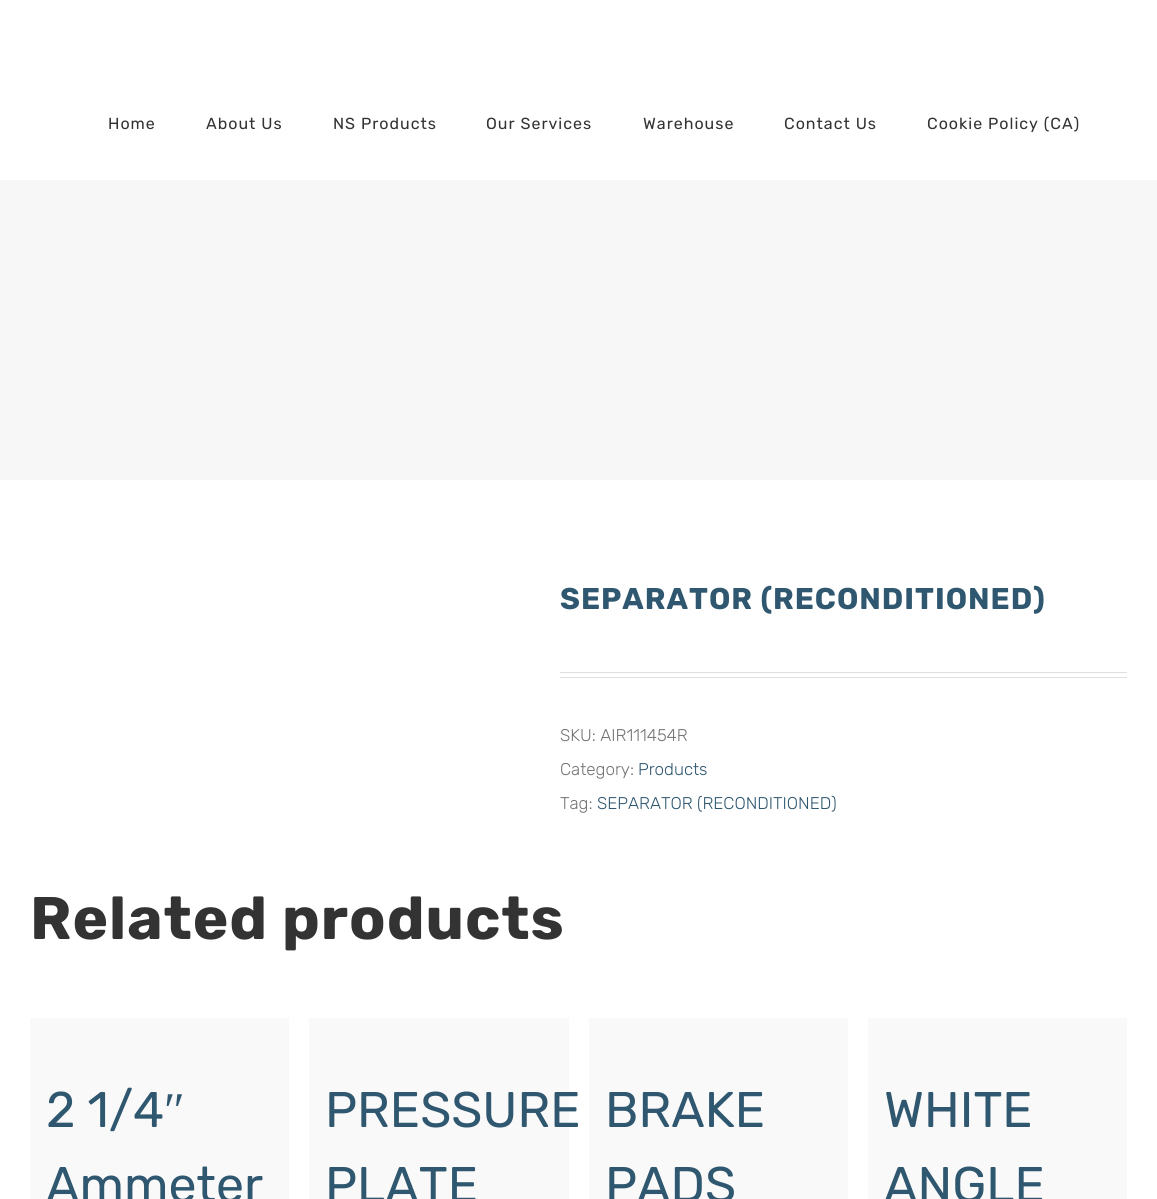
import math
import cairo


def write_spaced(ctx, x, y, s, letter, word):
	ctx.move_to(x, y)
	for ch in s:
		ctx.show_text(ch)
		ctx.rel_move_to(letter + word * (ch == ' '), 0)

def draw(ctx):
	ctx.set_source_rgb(1, 1, 1)
	ctx.paint()
	ctx.select_font_face('Rubik')
	ctx.set_font_size(16)
	ctx.set_source_rgb(0.2, 0.2, 0.2)
	for x, y, s in [
		(108, 129, 'Home'),
		(206, 129, 'About Us'),
		(333, 129, 'NS Products'),
		(486, 129, 'Our Services'),
		(643, 129, 'Warehouse'),
		(784, 129, 'Contact Us'),
		(927, 129, 'Cookie Policy (CA)'),
	]:
		write_spaced(ctx, x, y, s, 1, 0)
	ctx.set_source_rgb(0.965, 0.965, 0.965)
	ctx.rectangle(0, 180, 1157, 300)
	ctx.fill()
	ctx.select_font_face('Rubik', cairo.FONT_SLANT_NORMAL, cairo.FONT_WEIGHT_BOLD)
	ctx.set_font_size(30)
	ctx.set_source_rgb(0.184, 0.341, 0.435)
	write_spaced(ctx, 560, 609, 'SEPARATOR (RECONDITIONED)', 1, 0)
	ctx.set_source_rgb(0.878, 0.871, 0.871)
	ctx.rectangle(560, 672, 567, 1)
	ctx.fill()
	ctx.rectangle(560, 677, 567, 1)
	ctx.fill()
	ctx.select_font_face('Rubik Light')
	ctx.set_font_size(17)
	ctx.set_source_rgb(0.455, 0.455, 0.455)
	ctx.move_to(560, 741)
	ctx.show_text('SKU: AIR111454R')
	ctx.move_to(560, 775)
	ctx.show_text('Category:')
	ctx.set_source_rgb(0.184, 0.341, 0.435)
	ctx.move_to(638, 775)
	ctx.show_text('Products')
	ctx.set_source_rgb(0.455, 0.455, 0.455)
	ctx.move_to(560, 809)
	ctx.show_text('Tag:')
	ctx.set_source_rgb(0.184, 0.341, 0.435)
	ctx.move_to(597, 809)
	ctx.show_text('SEPARATOR (RECONDITIONED)')
	ctx.select_font_face('Rubik', cairo.FONT_SLANT_NORMAL, cairo.FONT_WEIGHT_BOLD)
	ctx.set_font_size(60)
	ctx.set_source_rgb(0.2, 0.2, 0.2)
	write_spaced(ctx, 30, 939, 'Related products', 1, 0)
	ctx.set_source_rgb(0.976, 0.976, 0.976)
	ctx.rectangle(31, 1019, 257, 180)
	ctx.rectangle(30, 1018, 259, 1)
	ctx.rectangle(288, 1018, 1, 181)
	ctx.rectangle(30, 1018, 1, 181)
	ctx.fill()
	ctx.select_font_face('Rubik')
	ctx.set_font_size(50)
	ctx.set_source_rgb(0.184, 0.341, 0.435)
	ctx.move_to(46, 1127)
	ctx.show_text('2 1/4')
	ctx.select_font_face('Liberation Serif')
	ctx.move_to(164, 1127)
	ctx.show_text('″')
	ctx.select_font_face('Rubik')
	ctx.move_to(46, 1202)
	ctx.show_text('Ammeter')
	ctx.set_source_rgb(0.976, 0.976, 0.976)
	ctx.rectangle(310, 1019, 258, 180)
	ctx.rectangle(309, 1018, 260, 1)
	ctx.rectangle(568, 1018, 1, 181)
	ctx.rectangle(309, 1018, 1, 181)
	ctx.fill()
	ctx.set_source_rgb(0.184, 0.341, 0.435)
	ctx.move_to(325, 1127)
	ctx.show_text('PRESSURE')
	ctx.move_to(325, 1202)
	ctx.show_text('PLATE')
	ctx.set_source_rgb(0.976, 0.976, 0.976)
	ctx.rectangle(590, 1019, 257, 180)
	ctx.rectangle(589, 1018, 259, 1)
	ctx.rectangle(847, 1018, 1, 181)
	ctx.rectangle(589, 1018, 1, 181)
	ctx.fill()
	ctx.set_source_rgb(0.184, 0.341, 0.435)
	ctx.move_to(605, 1127)
	ctx.show_text('BRAKE')
	ctx.move_to(605, 1202)
	ctx.show_text('PADS')
	ctx.set_source_rgb(0.976, 0.976, 0.976)
	ctx.rectangle(869, 1019, 257, 180)
	ctx.rectangle(868, 1018, 259, 1)
	ctx.rectangle(1126, 1018, 1, 181)
	ctx.rectangle(868, 1018, 1, 181)
	ctx.fill()
	ctx.set_source_rgb(0.184, 0.341, 0.435)
	ctx.move_to(884, 1127)
	ctx.show_text('WHITE')
	ctx.move_to(884, 1202)
	ctx.show_text('ANGLE')


surface = cairo.ImageSurface(cairo.FORMAT_RGB24, 1157, 1199)
ctx = cairo.Context(surface)
options = cairo.FontOptions()
options.set_hint_metrics(cairo.HINT_METRICS_OFF)
options.set_hint_style(cairo.HINT_STYLE_NONE)
ctx.set_font_options(options)
ctx.set_miter_limit(4)
draw(ctx)
surface.write_to_png('image.png')
